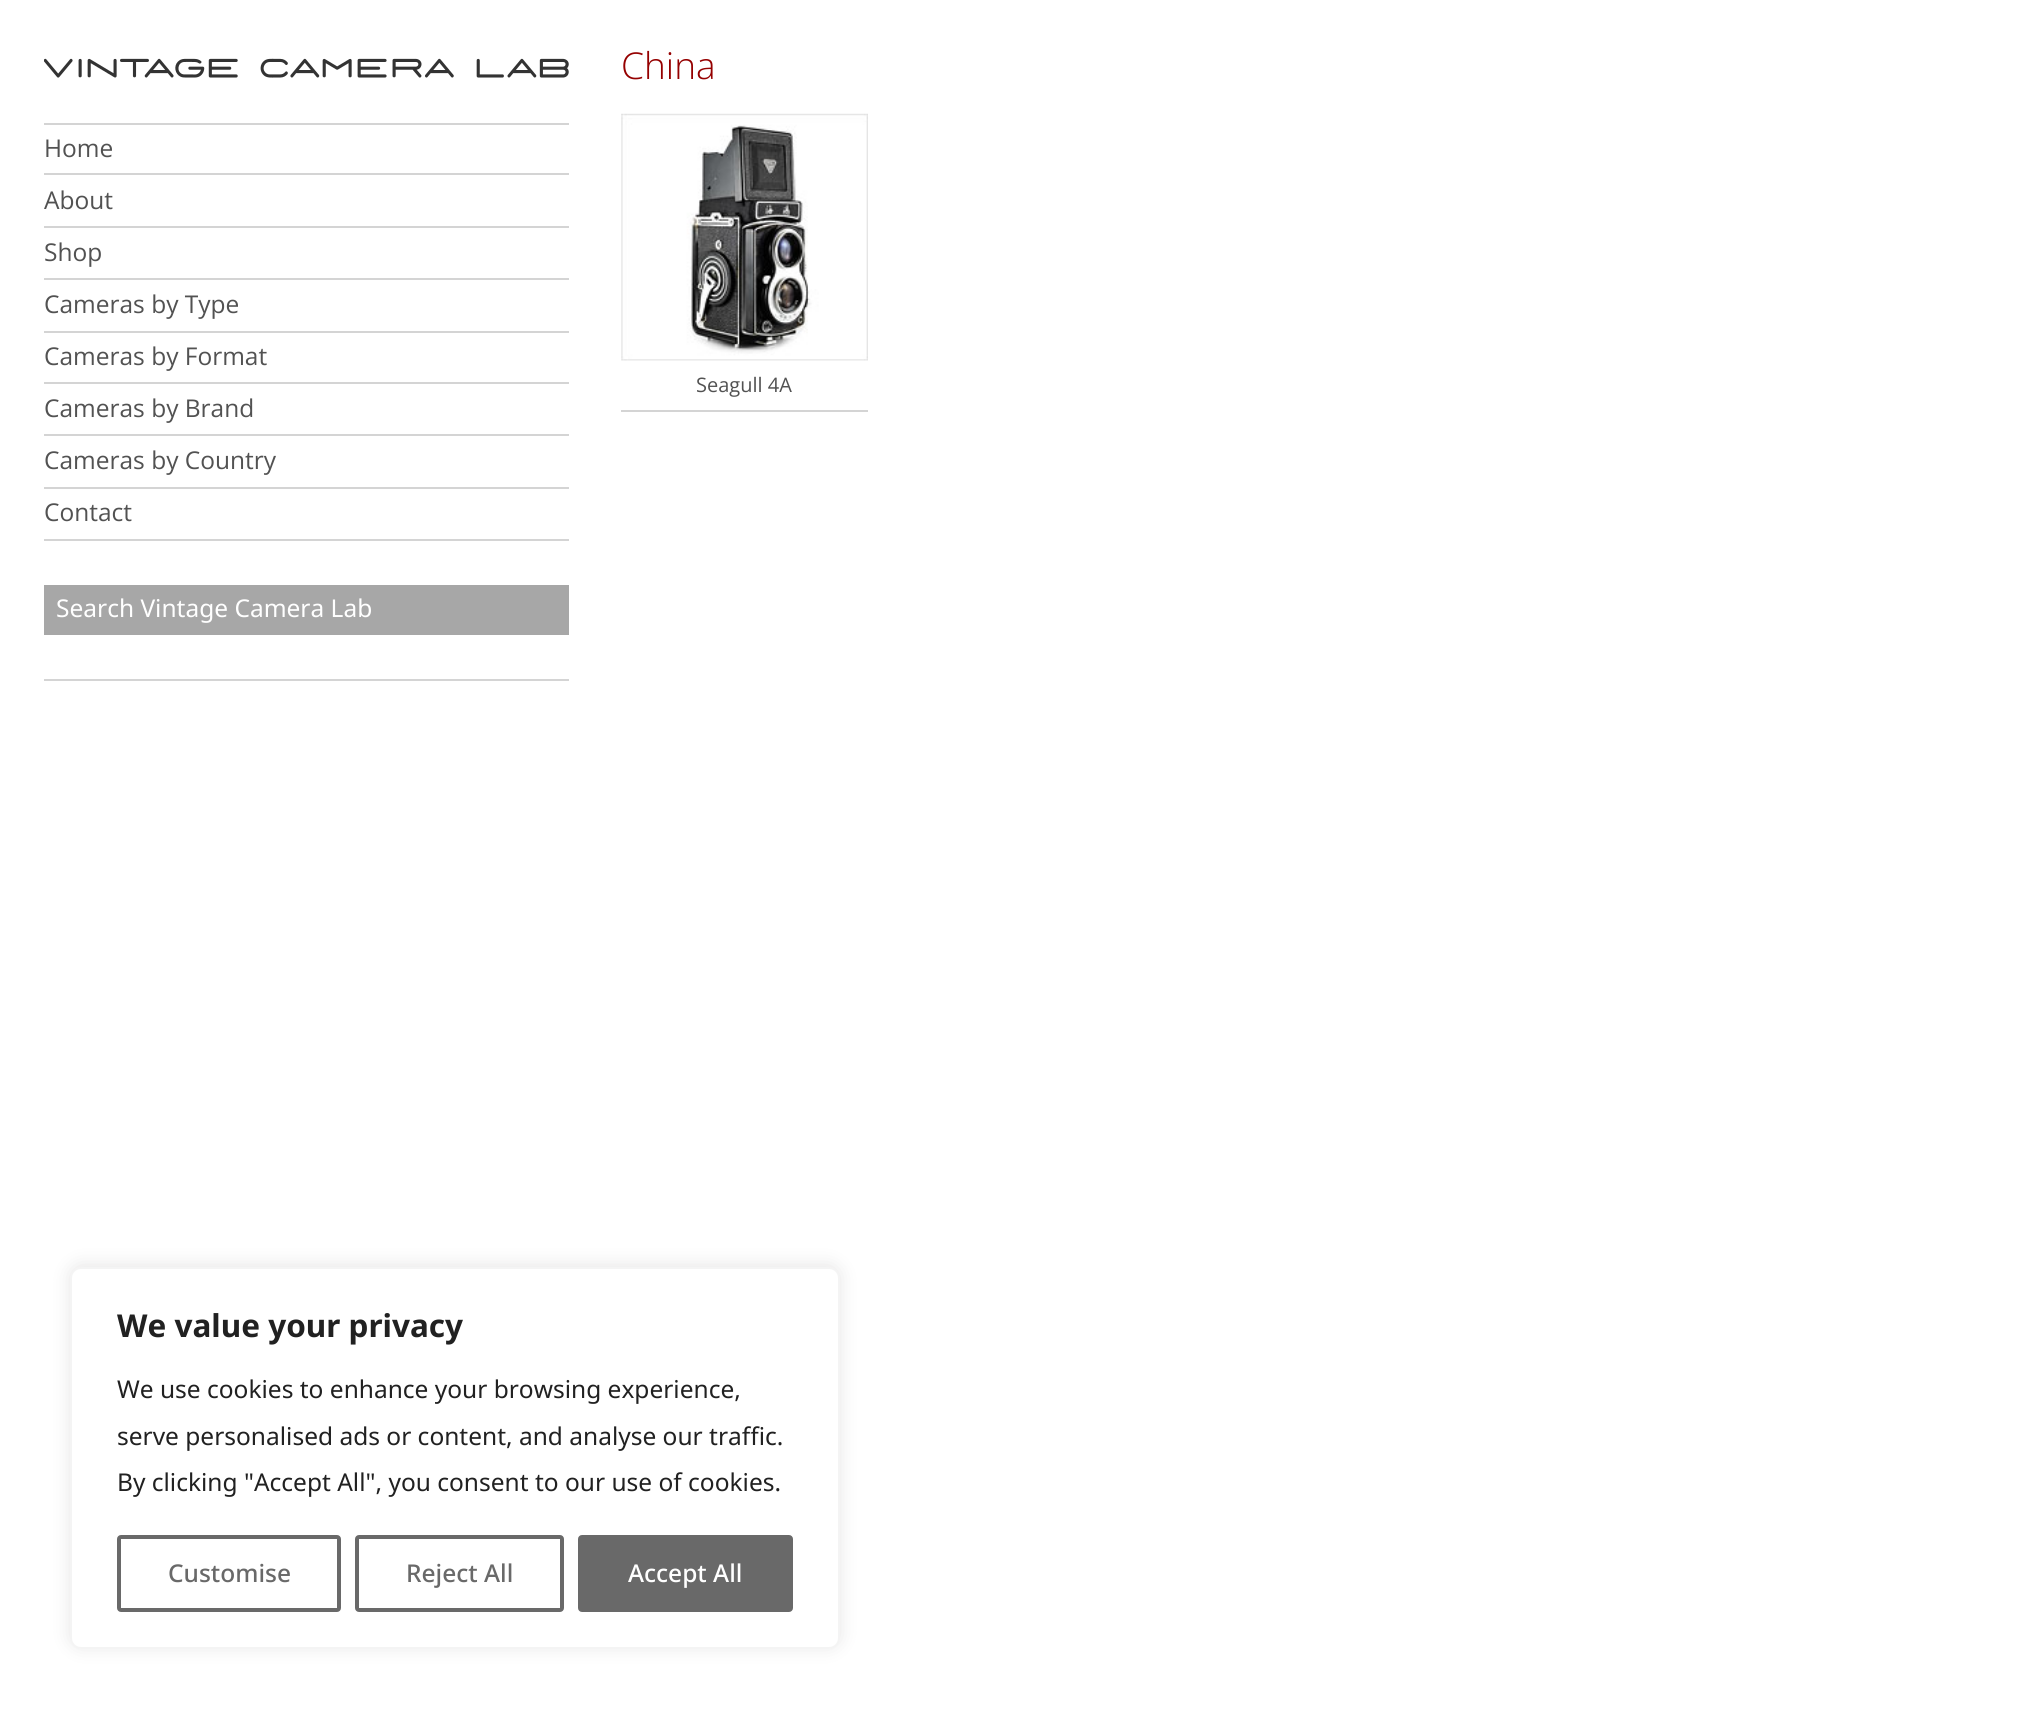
import math
import cairo


def round_path(ctx, x, y, w, h, r):
	ctx.new_sub_path()
	for i, (u, v) in enumerate([(x + w - r, y + h - r), (x + r, y + h - r), (x + r, y + r), (x + w - r, y + r)]):
		ctx.arc(u, v, r, i * math.pi / 2, (i + 1) * math.pi / 2)
	ctx.close_path()

def blur_box(ctx, x, y, w, h, r, blur, alpha):
	ctx.push_group_with_content(cairo.CONTENT_ALPHA)
	ctx.set_operator(cairo.OPERATOR_SOURCE)
	for i in range(15, -16, -2):
		e = blur * i / 6
		if min(w, h) + 2 * e > 0:
			ctx.set_source_rgba(0, 0, 0, alpha * math.erfc((i - 1) / 8.5) / 2)
			round_path(ctx, x - e, y - e, w + 2 * e, h + 2 * e, max(0, min(r + e + blur * .6, min(w, h) / 2 + e)))
			ctx.fill()
	ctx.mask(ctx.pop_group())

def paste(ctx, path, x, y, w, h):
	ctx.save()
	ctx.set_source_surface(cairo.ImageSurface.create_from_png(path), x, y)
	ctx.rectangle(x, y, w, h)
	ctx.fill()
	ctx.restore()

def draw(ctx):
	ctx.set_source_rgb(1, 1, 1)
	ctx.paint()
	paste(ctx, 'media/1.png', 44, 58, 525, 20)
	ctx.set_source_rgb(0.831, 0.831, 0.831)
	ctx.rectangle(44, 123, 525, 2)
	ctx.fill()
	ctx.select_font_face('Open Sans')
	ctx.set_font_size(24.5)
	ctx.set_source_rgb(0.322, 0.322, 0.322)
	ctx.move_to(44, 157)
	ctx.show_text('Home')
	ctx.set_source_rgb(0.831, 0.831, 0.831)
	ctx.rectangle(44, 173, 525, 2)
	ctx.fill()
	ctx.set_source_rgb(0.322, 0.322, 0.322)
	ctx.move_to(44, 209)
	ctx.show_text('About')
	ctx.set_source_rgb(0.831, 0.831, 0.831)
	ctx.rectangle(44, 226, 525, 2)
	ctx.fill()
	ctx.set_source_rgb(0.322, 0.322, 0.322)
	ctx.move_to(44, 261)
	ctx.show_text('Shop')
	ctx.set_source_rgb(0.831, 0.831, 0.831)
	ctx.rectangle(44, 278, 525, 2)
	ctx.fill()
	ctx.set_source_rgb(0.322, 0.322, 0.322)
	ctx.move_to(44, 313)
	ctx.show_text('Cameras by Type')
	ctx.set_source_rgb(0.831, 0.831, 0.831)
	ctx.rectangle(44, 331, 525, 2)
	ctx.fill()
	ctx.set_source_rgb(0.322, 0.322, 0.322)
	ctx.move_to(44, 365)
	ctx.show_text('Cameras by Format')
	ctx.set_source_rgb(0.831, 0.831, 0.831)
	ctx.rectangle(44, 382, 525, 2)
	ctx.fill()
	ctx.set_source_rgb(0.322, 0.322, 0.322)
	ctx.move_to(44, 417)
	ctx.show_text('Cameras by Brand')
	ctx.set_source_rgb(0.831, 0.831, 0.831)
	ctx.rectangle(44, 434, 525, 2)
	ctx.fill()
	ctx.set_source_rgb(0.322, 0.322, 0.322)
	ctx.move_to(44, 469)
	ctx.show_text('Cameras by Country')
	ctx.set_source_rgb(0.831, 0.831, 0.831)
	ctx.rectangle(44, 487, 525, 2)
	ctx.fill()
	ctx.rectangle(44, 539, 525, 2)
	ctx.fill()
	ctx.set_source_rgb(0.322, 0.322, 0.322)
	ctx.move_to(44, 521)
	ctx.show_text('Contact')
	ctx.set_source_rgb(0.655, 0.655, 0.655)
	ctx.rectangle(44, 585, 525, 50)
	ctx.fill()
	ctx.select_font_face('Noto Sans')
	ctx.set_source_rgb(1, 1, 1)
	ctx.move_to(56, 617)
	ctx.show_text('Search Vintage Camera Lab')
	ctx.set_source_rgb(0.831, 0.831, 0.831)
	ctx.rectangle(44, 679, 525, 2)
	ctx.fill()
	ctx.select_font_face('Open Sans Light')
	ctx.set_font_size(37)
	ctx.set_source_rgb(0.584, 0, 0)
	ctx.move_to(621, 79)
	ctx.show_text('China')
	paste(ctx, 'media/2.png', 621, 113, 247, 248)
	ctx.set_source_rgb(0.831, 0.831, 0.831)
	ctx.rectangle(621, 410, 247, 2)
	ctx.fill()
	ctx.select_font_face('Open Sans')
	ctx.set_font_size(20)
	ctx.set_source_rgb(0.322, 0.322, 0.322)
	ctx.move_to(696, 392)
	ctx.show_text('Seagull 4A')
	ctx.set_source_rgb(0.675, 0.671, 0.671)
	blur_box(ctx, 70, 1265, 770, 382, 11, 9, 0.3)
	ctx.set_source_rgb(1, 1, 1)
	round_path(ctx, 71, 1268, 768, 380, 10)
	ctx.fill_preserve()
	ctx.set_source_rgb(0.957, 0.957, 0.957)
	ctx.stroke()
	ctx.select_font_face('Noto Sans', cairo.FONT_SLANT_NORMAL, cairo.FONT_WEIGHT_BOLD)
	ctx.set_font_size(31.5)
	ctx.set_source_rgb(0.129, 0.129, 0.129)
	ctx.move_to(117, 1337)
	ctx.show_text('We value your privacy')
	ctx.select_font_face('Noto Sans')
	ctx.set_font_size(24.5)
	for x, y, s in [
		(117, 1398, 'We use cookies to enhance your browsing experience,'),
		(117, 1445, 'serve personalised ads or content, and analyse our traffic.'),
		(117, 1491, 'By clicking "Accept All", you consent to our use of cookies.'),
	]:
		ctx.move_to(x, y)
		ctx.show_text(s)
	round_path(ctx, 119, 1537, 220, 73, 2)
	ctx.set_source_rgb(0.412, 0.412, 0.412)
	ctx.set_line_width(4)
	ctx.stroke()
	ctx.select_font_face('Noto Sans Medium')
	ctx.move_to(168, 1582)
	ctx.show_text('Customise')
	round_path(ctx, 357, 1537, 205, 73, 2)
	ctx.stroke()
	ctx.move_to(406, 1582)
	ctx.show_text('Reject All')
	round_path(ctx, 580, 1537, 211, 73, 2)
	ctx.fill_preserve()
	ctx.stroke()
	ctx.set_source_rgb(1, 1, 1)
	ctx.move_to(628, 1582)
	ctx.show_text('Accept All')


surface = cairo.ImageSurface(cairo.FORMAT_RGB24, 2038, 1718)
ctx = cairo.Context(surface)
options = cairo.FontOptions()
options.set_hint_metrics(cairo.HINT_METRICS_OFF)
options.set_hint_style(cairo.HINT_STYLE_NONE)
ctx.set_font_options(options)
ctx.set_miter_limit(4)
draw(ctx)
surface.write_to_png('image.png')
